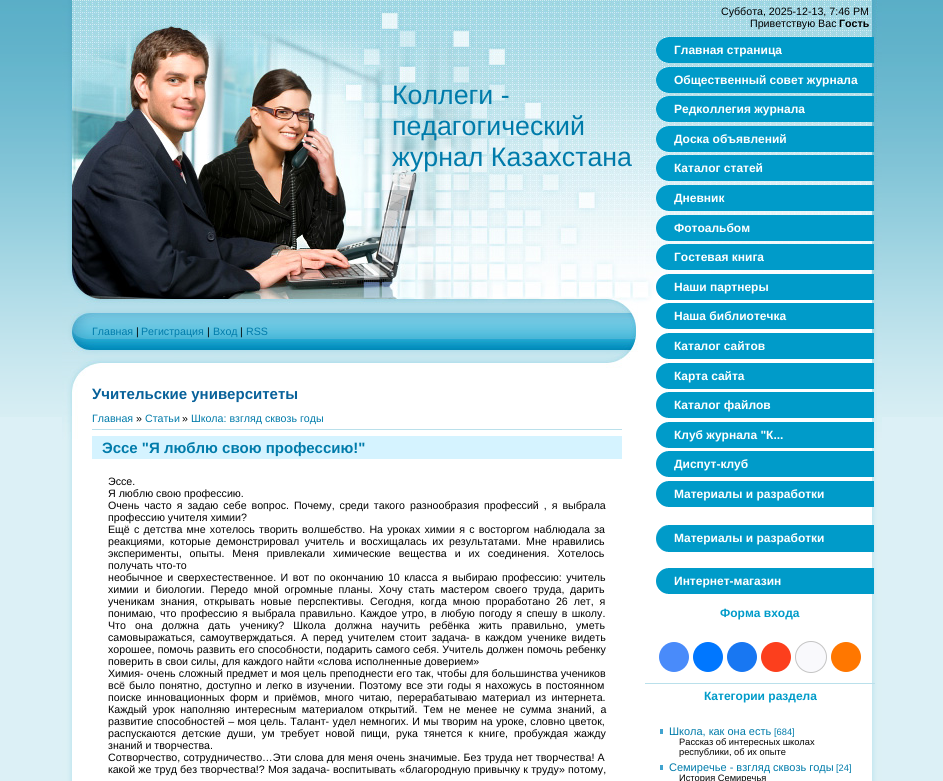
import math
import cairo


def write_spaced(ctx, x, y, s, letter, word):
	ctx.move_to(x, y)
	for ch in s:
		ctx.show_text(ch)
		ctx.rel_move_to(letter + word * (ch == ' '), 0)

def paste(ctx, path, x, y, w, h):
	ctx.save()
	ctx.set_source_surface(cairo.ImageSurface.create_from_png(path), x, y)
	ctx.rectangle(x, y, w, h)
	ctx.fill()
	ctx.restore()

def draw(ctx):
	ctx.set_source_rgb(0.863, 0.941, 0.961)
	ctx.paint()
	paste(ctx, 'media/1.png', 0, 0, 943, 417)
	paste(ctx, 'media/2.png', 62, 439, 820, 342)
	paste(ctx, 'media/3.png', 62, 0, 820, 439)
	ctx.select_font_face('Liberation Sans')
	ctx.set_font_size(26.75)
	ctx.set_source_rgb(0, 0.482, 0.667)
	for x, y, s in [
		(392, 104, 'Коллеги -'),
		(392, 135, 'педагогический'),
		(392, 166, 'журнал Казахстана'),
	]:
		ctx.move_to(x, y)
		ctx.show_text(s)
	ctx.set_font_size(10.65)
	ctx.move_to(92, 335)
	ctx.show_text('Главная')
	ctx.set_source_rgb(0, 0, 0)
	ctx.move_to(136, 335)
	ctx.show_text('|')
	ctx.set_source_rgb(0, 0.482, 0.667)
	ctx.move_to(141, 335)
	ctx.show_text('Регистрация')
	ctx.set_source_rgb(0, 0, 0)
	ctx.move_to(207, 335)
	ctx.show_text('|')
	ctx.set_source_rgb(0, 0.482, 0.667)
	ctx.move_to(213, 335)
	ctx.show_text('Вход')
	ctx.set_source_rgb(0, 0, 0)
	ctx.move_to(240, 335)
	ctx.show_text('|')
	ctx.set_source_rgb(0, 0.482, 0.667)
	ctx.move_to(246, 335)
	ctx.show_text('RSS')
	ctx.select_font_face('Liberation Sans', cairo.FONT_SLANT_NORMAL, cairo.FONT_WEIGHT_BOLD)
	ctx.set_font_size(15)
	ctx.set_source_rgb(0.031, 0.38, 0.604)
	ctx.move_to(92, 399)
	ctx.show_text('Учительские университеты')
	ctx.select_font_face('Liberation Sans')
	ctx.set_font_size(10.65)
	ctx.set_source_rgb(0, 0.482, 0.667)
	ctx.move_to(92, 422)
	ctx.show_text('Главная')
	ctx.set_source_rgb(0, 0, 0)
	ctx.move_to(136, 422)
	ctx.show_text('»')
	ctx.set_source_rgb(0, 0.482, 0.667)
	ctx.move_to(145, 422)
	ctx.show_text('Статьи')
	ctx.set_source_rgb(0, 0, 0)
	ctx.move_to(182, 422)
	ctx.show_text('»')
	ctx.set_source_rgb(0, 0.482, 0.667)
	ctx.move_to(191, 422)
	ctx.show_text('Школа: взгляд сквозь годы')
	ctx.set_source_rgb(0.729, 0.878, 0.918)
	ctx.rectangle(92, 429, 530, 1)
	ctx.fill()
	ctx.set_source_rgb(0.835, 0.953, 1)
	ctx.rectangle(92, 436, 530, 23)
	ctx.fill()
	ctx.select_font_face('Liberation Sans', cairo.FONT_SLANT_NORMAL, cairo.FONT_WEIGHT_BOLD)
	ctx.set_font_size(15)
	ctx.set_source_rgb(0, 0.482, 0.667)
	ctx.move_to(102, 453)
	ctx.show_text('Эссе "Я люблю свою профессию!"')
	ctx.select_font_face('Liberation Sans')
	ctx.set_font_size(10.65)
	ctx.set_source_rgb(0, 0, 0)
	ctx.move_to(108, 485)
	ctx.show_text('Эссе.')
	ctx.move_to(108, 497)
	ctx.show_text('Я люблю свою профессию.')
	write_spaced(ctx, 108, 509, 'Очень часто я задаю себе вопрос. Почему, среди такого разнообразия профессий , я выбрала', 0, 2)
	ctx.move_to(108, 521)
	ctx.show_text('профессию учителя химии?')
	write_spaced(ctx, 108, 533, 'Ещё с детства мне хотелось творить волшебство. На уроках химии я с восторгом наблюдала за', 0, 1.25)
	write_spaced(ctx, 108, 545, 'реакциями, которые демонстрировал учитель и восхищалась их результатами. Мне нравились', 0, 2.5)
	write_spaced(ctx, 108, 557, 'эксперименты, опыты. Меня привлекали химические вещества и их соединения. Хотелось', 0, 5)
	ctx.move_to(108, 569)
	ctx.show_text('получать что-то')
	write_spaced(ctx, 108, 581, 'необычное и сверхестественное. И вот по окончанию 10 класса я выбираю профессию: учитель', 0, 1.5)
	write_spaced(ctx, 108, 593, 'химии и биологии. Передо мной огромные планы. Хочу стать мастером своего труда, дарить', 0, 2.75)
	write_spaced(ctx, 108, 605, 'ученикам знания, открывать новые перспективы. Сегодня, когда мною проработано 26 лет, я', 0, 3)
	write_spaced(ctx, 108, 617, 'понимаю, что профессию я выбрала правильно. Каждое утро, в любую погоду я спешу в школу.', 0, 1.4)
	write_spaced(ctx, 108, 629, 'Что она должна дать ученику? Школа должна научить ребёнка жить правильно, уметь', 0, 6.1)
	write_spaced(ctx, 108, 641, 'самовыражаться, самоутверждаться. А перед учителем стоит задача- в каждом ученике видеть', 0, 2)
	write_spaced(ctx, 108, 653, 'хорошее, помочь развить его способности, подарить самого себя. Учитель должен помочь ребенку', 0, 0.25)
	ctx.move_to(108, 665)
	ctx.show_text('поверить в свои силы, для каждого найти «слова исполненные доверием»')
	write_spaced(ctx, 108, 677, 'Химия- очень сложный предмет и моя цель преподнести его так, чтобы для большинства учеников', 0, 0.25)
	write_spaced(ctx, 108, 689, 'всё было понятно, доступно и легко в изучении. Поэтому все эти годы я нахожусь в постоянном', 0, 1.25)
	write_spaced(ctx, 108, 701, 'поиске инновационных форм и приёмов, много читаю, перерабатываю материал из интернета.', 0, 2.25)
	write_spaced(ctx, 108, 713, 'Каждый урок наполняю интересным материалом открытий. Тем не менее не сумма знаний, а', 0, 2.75)
	write_spaced(ctx, 108, 725, 'развитие способностей – моя цель. Талант- удел немногих. И мы творим на уроке, словно цветок,', 0, 0.5)
	write_spaced(ctx, 108, 737, 'распускаются детские души, ум требует новой пищи, рука тянется к книге, пробуждая жажду', 0, 3)
	ctx.move_to(108, 749)
	ctx.show_text('знаний и творчества.')
	write_spaced(ctx, 108, 761, 'Сотворчество, сотрудничество…Эти слова для меня очень значимые. Без труда нет творчества! А', 0, 0.25)
	write_spaced(ctx, 108, 773, 'какой же труд без творчества!? Моя задача- воспитывать «благородную привычку к труду» потому,', 0, 0.25)
	ctx.move_to(721, 15)
	ctx.show_text('Суббота, 2025-12-13, 7:46 PM')
	ctx.move_to(750, 27)
	ctx.show_text('Приветствую Вас')
	ctx.select_font_face('Liberation Sans', cairo.FONT_SLANT_NORMAL, cairo.FONT_WEIGHT_BOLD)
	ctx.move_to(839, 27)
	ctx.show_text('Гость')
	paste(ctx, 'media/4.png', 656, 37, 218, 26)
	ctx.set_font_size(12)
	ctx.set_source_rgb(1, 1, 1)
	ctx.move_to(674, 54)
	ctx.show_text('Главная страница')
	paste(ctx, 'media/5.png', 656, 67, 218, 26)
	ctx.move_to(674, 84)
	ctx.show_text('Общественный совет журнала')
	paste(ctx, 'media/6.png', 656, 96, 218, 26)
	ctx.move_to(674, 113)
	ctx.show_text('Редколлегия журнала')
	paste(ctx, 'media/7.png', 656, 126, 218, 26)
	ctx.move_to(674, 143)
	ctx.show_text('Доска объявлений')
	paste(ctx, 'media/8.png', 656, 155, 218, 26)
	ctx.move_to(674, 172)
	ctx.show_text('Каталог статей')
	paste(ctx, 'media/9.png', 656, 185, 218, 26)
	ctx.move_to(674, 202)
	ctx.show_text('Дневник')
	paste(ctx, 'media/10.png', 656, 215, 218, 26)
	ctx.move_to(674, 232)
	ctx.show_text('Фотоальбом')
	paste(ctx, 'media/11.png', 656, 244, 218, 26)
	ctx.move_to(674, 261)
	ctx.show_text('Гостевая книга')
	paste(ctx, 'media/12.png', 656, 274, 218, 26)
	ctx.move_to(674, 291)
	ctx.show_text('Наши партнеры')
	paste(ctx, 'media/13.png', 656, 303, 218, 26)
	ctx.move_to(674, 320)
	ctx.show_text('Наша библиотечка')
	paste(ctx, 'media/13.png', 656, 333, 218, 26)
	ctx.move_to(674, 350)
	ctx.show_text('Каталог сайтов')
	paste(ctx, 'media/13.png', 656, 363, 218, 26)
	ctx.move_to(674, 380)
	ctx.show_text('Карта сайта')
	paste(ctx, 'media/13.png', 656, 392, 218, 26)
	ctx.move_to(674, 409)
	ctx.show_text('Каталог файлов')
	paste(ctx, 'media/13.png', 656, 422, 218, 26)
	ctx.move_to(674, 439)
	ctx.show_text('Клуб журнала "К...')
	paste(ctx, 'media/13.png', 656, 451, 218, 26)
	ctx.move_to(674, 468)
	ctx.show_text('Диспут-клуб')
	paste(ctx, 'media/13.png', 656, 481, 218, 26)
	ctx.move_to(674, 498)
	ctx.show_text('Материалы и разработки')
	paste(ctx, 'media/14.png', 656, 525, 218, 27)
	ctx.move_to(674, 542)
	ctx.show_text('Материалы и разработки')
	paste(ctx, 'media/13.png', 656, 568, 218, 26)
	ctx.move_to(674, 585)
	ctx.show_text('Интернет-магазин')
	ctx.set_source_rgb(0, 0.608, 0.788)
	ctx.move_to(720, 617)
	ctx.show_text('Форма входа')
	ctx.set_source_rgb(0.729, 0.878, 0.918)
	ctx.rectangle(645, 683, 230, 1)
	ctx.fill()
	ctx.set_source_rgb(0.286, 0.545, 0.98)
	ctx.arc(674, 657, 15, 0, 2 * math.pi)
	ctx.fill()
	ctx.set_source_rgb(0, 0.467, 1)
	ctx.arc(708, 657, 15, 0, 2 * math.pi)
	ctx.fill()
	ctx.set_source_rgb(0.094, 0.467, 0.949)
	ctx.arc(742, 657, 15, 0, 2 * math.pi)
	ctx.fill()
	ctx.set_source_rgb(0.988, 0.247, 0.114)
	ctx.arc(776, 657, 15, 0, 2 * math.pi)
	ctx.fill()
	ctx.set_source_rgb(0.973, 0.973, 0.988)
	ctx.arc(811, 657, 15.5, 0, 2 * math.pi)
	ctx.fill_preserve()
	ctx.set_source_rgb(0.769, 0.769, 0.769)
	ctx.set_line_width(1)
	ctx.stroke()
	ctx.set_source_rgb(1, 0.467, 0)
	ctx.arc(846, 657, 15, 0, 2 * math.pi)
	ctx.fill()
	ctx.set_source_rgb(0, 0.608, 0.788)
	ctx.move_to(704, 700)
	ctx.show_text('Категории раздела')
	ctx.set_source_rgb(0.251, 0.639, 0.812)
	ctx.rectangle(660, 729, 3, 5)
	ctx.fill()
	ctx.select_font_face('Liberation Sans')
	ctx.set_font_size(11)
	ctx.set_source_rgb(0, 0.482, 0.667)
	ctx.move_to(669, 735)
	ctx.show_text('Школа, как она есть')
	ctx.set_font_size(9.3)
	ctx.move_to(774, 735)
	ctx.show_text('[684]')
	ctx.set_source_rgb(0, 0, 0)
	ctx.move_to(679, 745)
	ctx.show_text('Рассказ об интересных школах')
	ctx.move_to(679, 755)
	ctx.show_text('республики, об их опыте')
	ctx.set_source_rgb(0.251, 0.639, 0.812)
	ctx.rectangle(660, 765, 3, 5)
	ctx.fill()
	ctx.set_font_size(11)
	ctx.set_source_rgb(0, 0.482, 0.667)
	ctx.move_to(669, 771)
	ctx.show_text('Семиречье - взгляд сквозь годы')
	ctx.set_font_size(9.3)
	ctx.move_to(836, 771)
	ctx.show_text('[24]')
	ctx.set_source_rgb(0, 0, 0)
	ctx.move_to(679, 781)
	ctx.show_text('История Семиречья')


surface = cairo.ImageSurface(cairo.FORMAT_RGB24, 943, 781)
ctx = cairo.Context(surface)
options = cairo.FontOptions()
options.set_hint_metrics(cairo.HINT_METRICS_OFF)
options.set_hint_style(cairo.HINT_STYLE_NONE)
ctx.set_font_options(options)
ctx.set_miter_limit(4)
draw(ctx)
surface.write_to_png('image.png')
